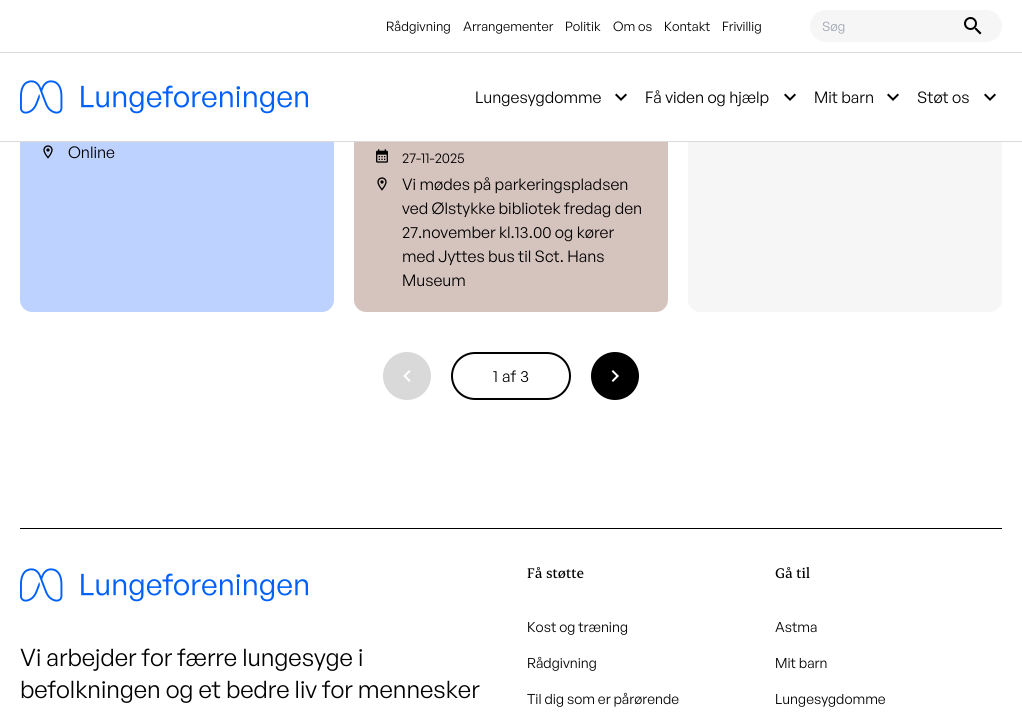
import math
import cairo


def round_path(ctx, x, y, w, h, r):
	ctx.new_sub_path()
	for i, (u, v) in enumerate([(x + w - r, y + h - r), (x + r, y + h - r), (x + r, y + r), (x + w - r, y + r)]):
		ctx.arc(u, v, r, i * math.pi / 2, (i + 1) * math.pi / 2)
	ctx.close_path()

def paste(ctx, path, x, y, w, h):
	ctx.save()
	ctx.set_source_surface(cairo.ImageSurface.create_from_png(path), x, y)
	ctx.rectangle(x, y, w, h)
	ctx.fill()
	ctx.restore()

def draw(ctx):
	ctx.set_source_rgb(1, 1, 1)
	ctx.paint()
	ctx.set_source_rgb(0.745, 0.824, 1)
	ctx.new_path()
	ctx.move_to(20, 8)
	ctx.line_to(334, 8)
	ctx.line_to(334, 300)
	ctx.curve_to(334, 306.5, 328.5, 312, 322, 312)
	ctx.line_to(32, 312)
	ctx.curve_to(25.5, 312, 20, 306.5, 20, 300)
	ctx.close_path()
	ctx.fill()
	ctx.set_source_rgb(0.835, 0.765, 0.741)
	ctx.new_path()
	ctx.move_to(354, 8)
	ctx.line_to(668, 8)
	ctx.line_to(668, 300)
	ctx.curve_to(668, 306.5, 662.5, 312, 656, 312)
	ctx.line_to(366, 312)
	ctx.curve_to(359.5, 312, 354, 306.5, 354, 300)
	ctx.close_path()
	ctx.fill()
	ctx.set_source_rgb(0.961, 0.961, 0.961)
	ctx.new_path()
	ctx.move_to(688, 8)
	ctx.line_to(1002, 8)
	ctx.line_to(1002, 300)
	ctx.curve_to(1002, 306.5, 996.5, 312, 990, 312)
	ctx.line_to(700, 312)
	ctx.curve_to(693.5, 312, 688, 306.5, 688, 300)
	ctx.close_path()
	ctx.fill()
	ctx.set_source_rgb(1, 1, 1)
	ctx.rectangle(20, 8, 982, 133)
	ctx.fill()
	ctx.set_source_rgb(0.859, 0.859, 0.859)
	ctx.rectangle(0, 52, 1022, 1)
	ctx.fill()
	ctx.select_font_face('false')
	ctx.set_font_size(13)
	ctx.set_source_rgb(0, 0, 0)
	for x, y, s in [
		(386, 31, 'Rådgivning'),
		(463, 31, 'Arrangementer'),
		(565, 31, 'Politik'),
		(613, 31, 'Om os'),
		(664, 31, 'Kontakt'),
		(722, 31, 'Frivillig'),
	]:
		ctx.move_to(x, y)
		ctx.show_text(s)
	ctx.set_source_rgb(0.961, 0.961, 0.961)
	round_path(ctx, 810, 10, 192, 32, 16)
	ctx.fill()
	ctx.set_source_rgb(0.612, 0.639, 0.686)
	ctx.move_to(822, 31)
	ctx.show_text('Søg')
	paste(ctx, 'media/1.png', 964, 17, 18, 18)
	ctx.set_source_rgb(0.859, 0.859, 0.859)
	ctx.rectangle(0, 141, 1022, 1)
	ctx.fill()
	paste(ctx, 'media/2.png', 20, 80, 288, 34)
	ctx.set_font_size(16)
	ctx.set_source_rgb(0, 0, 0)
	ctx.move_to(475, 103)
	ctx.show_text('Lungesygdomme')
	paste(ctx, 'media/3.png', 615, 93, 12, 8)
	ctx.move_to(645, 103)
	ctx.show_text('Få viden og hjælp')
	paste(ctx, 'media/3.png', 784, 93, 12, 8)
	ctx.move_to(814, 103)
	ctx.show_text('Mit barn')
	paste(ctx, 'media/3.png', 887, 93, 12, 8)
	ctx.move_to(917, 103)
	ctx.show_text('Støt os')
	paste(ctx, 'media/3.png', 984, 93, 12, 8)
	paste(ctx, 'media/4.png', 43, 145, 10, 14)
	ctx.move_to(68, 158)
	ctx.show_text('Online')
	paste(ctx, 'media/5.png', 376, 149, 12, 14)
	ctx.set_font_size(14)
	ctx.move_to(402, 163)
	ctx.show_text('27-11-2025')
	paste(ctx, 'media/6.png', 377, 177, 10, 14)
	ctx.set_font_size(16)
	for x, y, s in [
		(402, 190, 'Vi mødes på parkeringspladsen'),
		(402, 214, 'ved Ølstykke bibliotek fredag den'),
		(402, 238, '27.november kl.13.00 og kører'),
		(402, 262, 'med Jyttes bus til Sct. Hans'),
		(402, 286, 'Museum'),
	]:
		ctx.move_to(x, y)
		ctx.show_text(s)
	ctx.set_source_rgb(0.851, 0.851, 0.851)
	ctx.new_path()
	ctx.arc(407, 376, 24, 0, 2 * math.pi)
	ctx.fill()
	paste(ctx, 'media/7.png', 403, 370, 8, 12)
	round_path(ctx, 452, 353, 118, 46, 23)
	ctx.set_source_rgb(0, 0, 0)
	ctx.stroke()
	for x, y, s in [
		(493, 382, '1'),
		(502, 382, 'af'),
		(520, 382, '3'),
	]:
		ctx.move_to(x, y)
		ctx.show_text(s)
	ctx.new_path()
	ctx.arc(615, 376, 24, 0, 2 * math.pi)
	ctx.fill()
	paste(ctx, 'media/8.png', 611, 370, 8, 12)
	ctx.rectangle(20, 528, 982, 1)
	ctx.fill()
	paste(ctx, 'media/2.png', 20, 568, 288, 34)
	ctx.set_font_size(24)
	ctx.move_to(20, 666)
	ctx.show_text('Vi arbejder for færre lungesyge i')
	ctx.move_to(20, 698)
	ctx.show_text('befolkningen og et bedre liv for mennesker')
	ctx.select_font_face('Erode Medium')
	ctx.set_font_size(16)
	ctx.move_to(527, 578)
	ctx.show_text('Få støtte')
	ctx.select_font_face('false')
	ctx.set_font_size(14)
	for x, y, s in [
		(527, 632, 'Kost og træning'),
		(527, 668, 'Rådgivning'),
		(527, 704, 'Til dig som er pårørende'),
	]:
		ctx.move_to(x, y)
		ctx.show_text(s)
	ctx.select_font_face('Erode Medium')
	ctx.set_font_size(16)
	ctx.move_to(775, 578)
	ctx.show_text('Gå til')
	ctx.select_font_face('false')
	ctx.set_font_size(14)
	for x, y, s in [
		(775, 632, 'Astma'),
		(775, 668, 'Mit barn'),
		(775, 704, 'Lungesygdomme'),
	]:
		ctx.move_to(x, y)
		ctx.show_text(s)


surface = cairo.ImageSurface(cairo.FORMAT_RGB24, 1022, 717)
ctx = cairo.Context(surface)
options = cairo.FontOptions()
options.set_hint_metrics(cairo.HINT_METRICS_OFF)
options.set_hint_style(cairo.HINT_STYLE_NONE)
ctx.set_font_options(options)
ctx.set_miter_limit(4)
draw(ctx)
surface.write_to_png('image.png')
